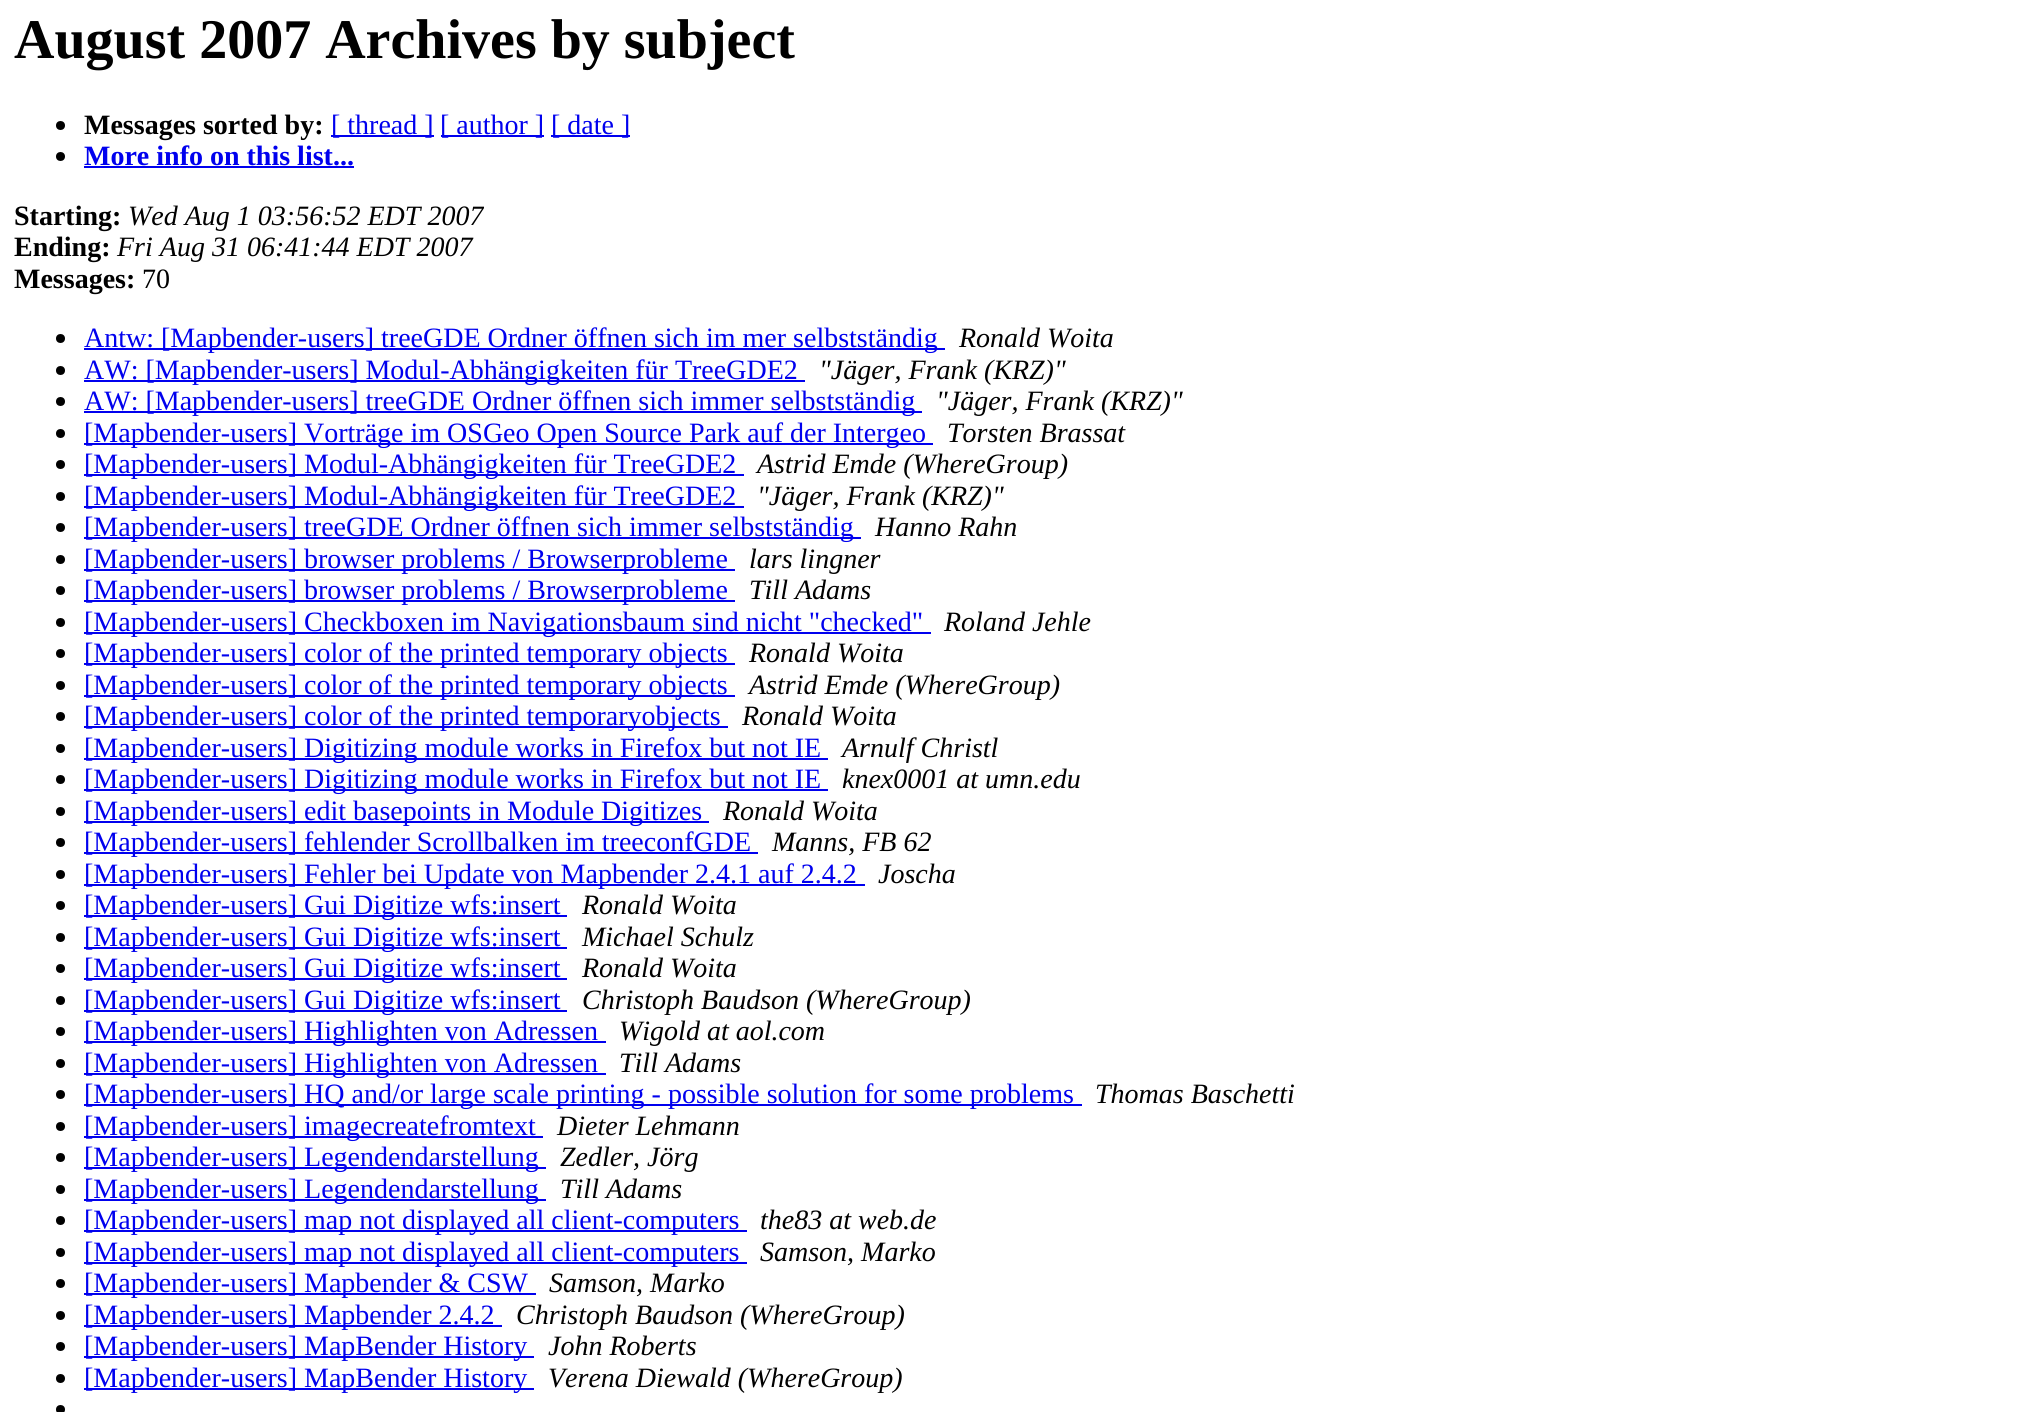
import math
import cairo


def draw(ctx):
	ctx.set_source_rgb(1, 1, 1)
	ctx.paint()
	ctx.select_font_face('Liberation Serif', cairo.FONT_SLANT_NORMAL, cairo.FONT_WEIGHT_BOLD)
	ctx.set_font_size(56)
	ctx.set_source_rgb(0, 0, 0)
	ctx.move_to(14, 58)
	ctx.show_text('August 2007 Archives by subject')
	ctx.new_path()
	ctx.arc(60.5, 125.5, 4.5, 0, 2 * math.pi)
	ctx.fill()
	ctx.set_font_size(28)
	ctx.move_to(84, 134)
	ctx.show_text('Messages sorted by:')
	ctx.set_source_rgb(0, 0, 0.933)
	ctx.rectangle(331, 135, 103, 2)
	ctx.fill()
	ctx.select_font_face('Liberation Serif')
	ctx.move_to(331, 134)
	ctx.show_text('[ thread ]')
	ctx.rectangle(441, 135, 103, 2)
	ctx.fill()
	ctx.move_to(440, 134)
	ctx.show_text('[ author ]')
	ctx.rectangle(551, 135, 79, 2)
	ctx.fill()
	ctx.move_to(551, 134)
	ctx.show_text('[ date ]')
	ctx.set_source_rgb(0, 0, 0)
	ctx.new_path()
	ctx.arc(60.5, 156.5, 4.5, 0, 2 * math.pi)
	ctx.fill()
	ctx.select_font_face('Liberation Serif', cairo.FONT_SLANT_NORMAL, cairo.FONT_WEIGHT_BOLD)
	ctx.set_source_rgb(0, 0, 0.933)
	ctx.move_to(84, 165)
	ctx.show_text('More info on this list...')
	ctx.rectangle(84, 166, 270, 2)
	ctx.fill()
	ctx.set_source_rgb(0, 0, 0)
	ctx.move_to(14, 225)
	ctx.show_text('Starting:')
	ctx.select_font_face('Liberation Serif', cairo.FONT_SLANT_ITALIC)
	ctx.move_to(128, 225)
	ctx.show_text('Wed Aug 1 03:56:52 EDT 2007')
	ctx.select_font_face('Liberation Serif', cairo.FONT_SLANT_NORMAL, cairo.FONT_WEIGHT_BOLD)
	ctx.move_to(14, 256)
	ctx.show_text('Ending:')
	ctx.select_font_face('Liberation Serif', cairo.FONT_SLANT_ITALIC)
	ctx.move_to(117, 256)
	ctx.show_text('Fri Aug 31 06:41:44 EDT 2007')
	ctx.select_font_face('Liberation Serif', cairo.FONT_SLANT_NORMAL, cairo.FONT_WEIGHT_BOLD)
	ctx.move_to(14, 288)
	ctx.show_text('Messages:')
	ctx.select_font_face('Liberation Serif')
	ctx.move_to(142, 288)
	ctx.show_text('70')
	ctx.new_path()
	ctx.arc(60.5, 338.5, 4.5, 0, 2 * math.pi)
	ctx.fill()
	ctx.set_source_rgb(0, 0, 0.933)
	ctx.rectangle(84, 348, 861, 2)
	ctx.fill()
	ctx.move_to(84, 347)
	ctx.show_text('Antw: [Mapbender-users] treeGDE Ordner öffnen sich im mer selbstständig')
	ctx.select_font_face('Liberation Serif', cairo.FONT_SLANT_ITALIC)
	ctx.set_source_rgb(0, 0, 0)
	ctx.move_to(959, 347)
	ctx.show_text('Ronald Woita')
	ctx.new_path()
	ctx.arc(60.5, 370.5, 4.5, 0, 2 * math.pi)
	ctx.fill()
	ctx.set_source_rgb(0, 0, 0.933)
	ctx.rectangle(84, 380, 721, 2)
	ctx.fill()
	ctx.select_font_face('Liberation Serif')
	ctx.move_to(84, 379)
	ctx.show_text('AW: [Mapbender-users] Modul-Abhängigkeiten für TreeGDE2')
	ctx.select_font_face('Liberation Serif', cairo.FONT_SLANT_ITALIC)
	ctx.set_source_rgb(0, 0, 0)
	ctx.move_to(819, 379)
	ctx.show_text('"Jäger, Frank (KRZ)"')
	ctx.new_path()
	ctx.arc(60.5, 401.5, 4.5, 0, 2 * math.pi)
	ctx.fill()
	ctx.set_source_rgb(0, 0, 0.933)
	ctx.rectangle(84, 411, 838, 2)
	ctx.fill()
	ctx.select_font_face('Liberation Serif')
	ctx.move_to(84, 410)
	ctx.show_text('AW: [Mapbender-users] treeGDE Ordner öffnen sich immer selbstständig')
	ctx.select_font_face('Liberation Serif', cairo.FONT_SLANT_ITALIC)
	ctx.set_source_rgb(0, 0, 0)
	ctx.move_to(936, 410)
	ctx.show_text('"Jäger, Frank (KRZ)"')
	ctx.new_path()
	ctx.arc(60.5, 433.5, 4.5, 0, 2 * math.pi)
	ctx.fill()
	ctx.set_source_rgb(0, 0, 0.933)
	ctx.rectangle(84, 443, 849, 2)
	ctx.fill()
	ctx.select_font_face('Liberation Serif')
	ctx.move_to(84, 442)
	ctx.show_text('[Mapbender-users] Vorträge im OSGeo Open Source Park auf der Intergeo')
	ctx.select_font_face('Liberation Serif', cairo.FONT_SLANT_ITALIC)
	ctx.set_source_rgb(0, 0, 0)
	ctx.move_to(947, 442)
	ctx.show_text('Torsten Brassat')
	ctx.new_path()
	ctx.arc(60.5, 464.5, 4.5, 0, 2 * math.pi)
	ctx.fill()
	ctx.set_source_rgb(0, 0, 0.933)
	ctx.rectangle(84, 474, 660, 2)
	ctx.fill()
	ctx.select_font_face('Liberation Serif')
	ctx.move_to(84, 473)
	ctx.show_text('[Mapbender-users] Modul-Abhängigkeiten für TreeGDE2')
	ctx.select_font_face('Liberation Serif', cairo.FONT_SLANT_ITALIC)
	ctx.set_source_rgb(0, 0, 0)
	ctx.move_to(757, 473)
	ctx.show_text('Astrid Emde (WhereGroup)')
	ctx.new_path()
	ctx.arc(60.5, 496.5, 4.5, 0, 2 * math.pi)
	ctx.fill()
	ctx.set_source_rgb(0, 0, 0.933)
	ctx.rectangle(84, 506, 660, 2)
	ctx.fill()
	ctx.select_font_face('Liberation Serif')
	ctx.move_to(84, 505)
	ctx.show_text('[Mapbender-users] Modul-Abhängigkeiten für TreeGDE2')
	ctx.select_font_face('Liberation Serif', cairo.FONT_SLANT_ITALIC)
	ctx.set_source_rgb(0, 0, 0)
	ctx.move_to(757, 505)
	ctx.show_text('"Jäger, Frank (KRZ)"')
	ctx.new_path()
	ctx.arc(60.5, 527.5, 4.5, 0, 2 * math.pi)
	ctx.fill()
	ctx.set_source_rgb(0, 0, 0.933)
	ctx.rectangle(84, 537, 777, 2)
	ctx.fill()
	ctx.select_font_face('Liberation Serif')
	ctx.move_to(84, 536)
	ctx.show_text('[Mapbender-users] treeGDE Ordner öffnen sich immer selbstständig')
	ctx.select_font_face('Liberation Serif', cairo.FONT_SLANT_ITALIC)
	ctx.set_source_rgb(0, 0, 0)
	ctx.move_to(875, 536)
	ctx.show_text('Hanno Rahn')
	ctx.new_path()
	ctx.arc(60.5, 559.5, 4.5, 0, 2 * math.pi)
	ctx.fill()
	ctx.set_source_rgb(0, 0, 0.933)
	ctx.rectangle(84, 569, 651, 2)
	ctx.fill()
	ctx.select_font_face('Liberation Serif')
	ctx.move_to(84, 568)
	ctx.show_text('[Mapbender-users] browser problems / Browserprobleme')
	ctx.select_font_face('Liberation Serif', cairo.FONT_SLANT_ITALIC)
	ctx.set_source_rgb(0, 0, 0)
	ctx.move_to(749, 568)
	ctx.show_text('lars lingner')
	ctx.new_path()
	ctx.arc(60.5, 590.5, 4.5, 0, 2 * math.pi)
	ctx.fill()
	ctx.set_source_rgb(0, 0, 0.933)
	ctx.rectangle(84, 600, 651, 2)
	ctx.fill()
	ctx.select_font_face('Liberation Serif')
	ctx.move_to(84, 599)
	ctx.show_text('[Mapbender-users] browser problems / Browserprobleme')
	ctx.select_font_face('Liberation Serif', cairo.FONT_SLANT_ITALIC)
	ctx.set_source_rgb(0, 0, 0)
	ctx.move_to(749, 599)
	ctx.show_text('Till Adams')
	ctx.new_path()
	ctx.arc(60.5, 622.5, 4.5, 0, 2 * math.pi)
	ctx.fill()
	ctx.set_source_rgb(0, 0, 0.933)
	ctx.rectangle(84, 632, 847, 2)
	ctx.fill()
	ctx.select_font_face('Liberation Serif')
	ctx.move_to(84, 631)
	ctx.show_text('[Mapbender-users] Checkboxen im Navigationsbaum sind nicht "checked"')
	ctx.select_font_face('Liberation Serif', cairo.FONT_SLANT_ITALIC)
	ctx.set_source_rgb(0, 0, 0)
	ctx.move_to(944, 631)
	ctx.show_text('Roland Jehle')
	ctx.new_path()
	ctx.arc(60.5, 653.5, 4.5, 0, 2 * math.pi)
	ctx.fill()
	ctx.set_source_rgb(0, 0, 0.933)
	ctx.rectangle(84, 663, 651, 2)
	ctx.fill()
	ctx.select_font_face('Liberation Serif')
	ctx.move_to(84, 662)
	ctx.show_text('[Mapbender-users] color of the printed temporary objects')
	ctx.select_font_face('Liberation Serif', cairo.FONT_SLANT_ITALIC)
	ctx.set_source_rgb(0, 0, 0)
	ctx.move_to(749, 662)
	ctx.show_text('Ronald Woita')
	ctx.new_path()
	ctx.arc(60.5, 685.5, 4.5, 0, 2 * math.pi)
	ctx.fill()
	ctx.set_source_rgb(0, 0, 0.933)
	ctx.rectangle(84, 695, 651, 2)
	ctx.fill()
	ctx.select_font_face('Liberation Serif')
	ctx.move_to(84, 694)
	ctx.show_text('[Mapbender-users] color of the printed temporary objects')
	ctx.select_font_face('Liberation Serif', cairo.FONT_SLANT_ITALIC)
	ctx.set_source_rgb(0, 0, 0)
	ctx.move_to(749, 694)
	ctx.show_text('Astrid Emde (WhereGroup)')
	ctx.new_path()
	ctx.arc(60.5, 716.5, 4.5, 0, 2 * math.pi)
	ctx.fill()
	ctx.set_source_rgb(0, 0, 0.933)
	ctx.rectangle(84, 726, 644, 2)
	ctx.fill()
	ctx.select_font_face('Liberation Serif')
	ctx.move_to(84, 725)
	ctx.show_text('[Mapbender-users] color of the printed temporaryobjects')
	ctx.select_font_face('Liberation Serif', cairo.FONT_SLANT_ITALIC)
	ctx.set_source_rgb(0, 0, 0)
	ctx.move_to(742, 725)
	ctx.show_text('Ronald Woita')
	ctx.new_path()
	ctx.arc(60.5, 748.5, 4.5, 0, 2 * math.pi)
	ctx.fill()
	ctx.set_source_rgb(0, 0, 0.933)
	ctx.rectangle(84, 758, 744, 2)
	ctx.fill()
	ctx.select_font_face('Liberation Serif')
	ctx.move_to(84, 757)
	ctx.show_text('[Mapbender-users] Digitizing module works in Firefox but not IE')
	ctx.select_font_face('Liberation Serif', cairo.FONT_SLANT_ITALIC)
	ctx.set_source_rgb(0, 0, 0)
	ctx.move_to(842, 757)
	ctx.show_text('Arnulf Christl')
	ctx.new_path()
	ctx.arc(60.5, 779.5, 4.5, 0, 2 * math.pi)
	ctx.fill()
	ctx.set_source_rgb(0, 0, 0.933)
	ctx.rectangle(84, 789, 744, 2)
	ctx.fill()
	ctx.select_font_face('Liberation Serif')
	ctx.move_to(84, 788)
	ctx.show_text('[Mapbender-users] Digitizing module works in Firefox but not IE')
	ctx.select_font_face('Liberation Serif', cairo.FONT_SLANT_ITALIC)
	ctx.set_source_rgb(0, 0, 0)
	ctx.move_to(842, 788)
	ctx.show_text('knex0001 at umn.edu')
	ctx.new_path()
	ctx.arc(60.5, 811.5, 4.5, 0, 2 * math.pi)
	ctx.fill()
	ctx.set_source_rgb(0, 0, 0.933)
	ctx.rectangle(84, 821, 625, 2)
	ctx.fill()
	ctx.select_font_face('Liberation Serif')
	ctx.move_to(84, 820)
	ctx.show_text('[Mapbender-users] edit basepoints in Module Digitizes')
	ctx.select_font_face('Liberation Serif', cairo.FONT_SLANT_ITALIC)
	ctx.set_source_rgb(0, 0, 0)
	ctx.move_to(723, 820)
	ctx.show_text('Ronald Woita')
	ctx.new_path()
	ctx.arc(60.5, 842.5, 4.5, 0, 2 * math.pi)
	ctx.fill()
	ctx.set_source_rgb(0, 0, 0.933)
	ctx.rectangle(84, 852, 674, 2)
	ctx.fill()
	ctx.select_font_face('Liberation Serif')
	ctx.move_to(84, 851)
	ctx.show_text('[Mapbender-users] fehlender Scrollbalken im treeconfGDE')
	ctx.select_font_face('Liberation Serif', cairo.FONT_SLANT_ITALIC)
	ctx.set_source_rgb(0, 0, 0)
	ctx.move_to(772, 851)
	ctx.show_text('Manns, FB 62')
	ctx.new_path()
	ctx.arc(60.5, 874.5, 4.5, 0, 2 * math.pi)
	ctx.fill()
	ctx.set_source_rgb(0, 0, 0.933)
	ctx.rectangle(84, 884, 781, 2)
	ctx.fill()
	ctx.select_font_face('Liberation Serif')
	ctx.move_to(84, 883)
	ctx.show_text('[Mapbender-users] Fehler bei Update von Mapbender 2.4.1 auf 2.4.2')
	ctx.select_font_face('Liberation Serif', cairo.FONT_SLANT_ITALIC)
	ctx.set_source_rgb(0, 0, 0)
	ctx.move_to(878, 883)
	ctx.show_text('Joscha')
	ctx.new_path()
	ctx.arc(60.5, 905.5, 4.5, 0, 2 * math.pi)
	ctx.fill()
	ctx.set_source_rgb(0, 0, 0.933)
	ctx.rectangle(84, 915, 483, 2)
	ctx.fill()
	ctx.select_font_face('Liberation Serif')
	ctx.move_to(84, 914)
	ctx.show_text('[Mapbender-users] Gui Digitize wfs:insert')
	ctx.select_font_face('Liberation Serif', cairo.FONT_SLANT_ITALIC)
	ctx.set_source_rgb(0, 0, 0)
	ctx.move_to(582, 914)
	ctx.show_text('Ronald Woita')
	ctx.new_path()
	ctx.arc(60.5, 937.5, 4.5, 0, 2 * math.pi)
	ctx.fill()
	ctx.set_source_rgb(0, 0, 0.933)
	ctx.rectangle(84, 947, 483, 2)
	ctx.fill()
	ctx.select_font_face('Liberation Serif')
	ctx.move_to(84, 946)
	ctx.show_text('[Mapbender-users] Gui Digitize wfs:insert')
	ctx.select_font_face('Liberation Serif', cairo.FONT_SLANT_ITALIC)
	ctx.set_source_rgb(0, 0, 0)
	ctx.move_to(582, 946)
	ctx.show_text('Michael Schulz')
	ctx.new_path()
	ctx.arc(60.5, 968.5, 4.5, 0, 2 * math.pi)
	ctx.fill()
	ctx.set_source_rgb(0, 0, 0.933)
	ctx.rectangle(84, 978, 483, 2)
	ctx.fill()
	ctx.select_font_face('Liberation Serif')
	ctx.move_to(84, 977)
	ctx.show_text('[Mapbender-users] Gui Digitize wfs:insert')
	ctx.select_font_face('Liberation Serif', cairo.FONT_SLANT_ITALIC)
	ctx.set_source_rgb(0, 0, 0)
	ctx.move_to(582, 977)
	ctx.show_text('Ronald Woita')
	ctx.new_path()
	ctx.arc(60.5, 1000.5, 4.5, 0, 2 * math.pi)
	ctx.fill()
	ctx.set_source_rgb(0, 0, 0.933)
	ctx.rectangle(84, 1010, 483, 2)
	ctx.fill()
	ctx.select_font_face('Liberation Serif')
	ctx.move_to(84, 1009)
	ctx.show_text('[Mapbender-users] Gui Digitize wfs:insert')
	ctx.select_font_face('Liberation Serif', cairo.FONT_SLANT_ITALIC)
	ctx.set_source_rgb(0, 0, 0)
	ctx.move_to(582, 1009)
	ctx.show_text('Christoph Baudson (WhereGroup)')
	ctx.new_path()
	ctx.arc(60.5, 1031.5, 4.5, 0, 2 * math.pi)
	ctx.fill()
	ctx.set_source_rgb(0, 0, 0.933)
	ctx.rectangle(84, 1041, 522, 2)
	ctx.fill()
	ctx.select_font_face('Liberation Serif')
	ctx.move_to(84, 1040)
	ctx.show_text('[Mapbender-users] Highlighten von Adressen')
	ctx.select_font_face('Liberation Serif', cairo.FONT_SLANT_ITALIC)
	ctx.set_source_rgb(0, 0, 0)
	ctx.move_to(619, 1040)
	ctx.show_text('Wigold at aol.com')
	ctx.new_path()
	ctx.arc(60.5, 1063.5, 4.5, 0, 2 * math.pi)
	ctx.fill()
	ctx.set_source_rgb(0, 0, 0.933)
	ctx.rectangle(84, 1073, 522, 2)
	ctx.fill()
	ctx.select_font_face('Liberation Serif')
	ctx.move_to(84, 1072)
	ctx.show_text('[Mapbender-users] Highlighten von Adressen')
	ctx.select_font_face('Liberation Serif', cairo.FONT_SLANT_ITALIC)
	ctx.set_source_rgb(0, 0, 0)
	ctx.move_to(619, 1072)
	ctx.show_text('Till Adams')
	ctx.new_path()
	ctx.arc(60.5, 1094.5, 4.5, 0, 2 * math.pi)
	ctx.fill()
	ctx.set_source_rgb(0, 0, 0.933)
	ctx.rectangle(84, 1104, 998, 2)
	ctx.fill()
	ctx.select_font_face('Liberation Serif')
	ctx.move_to(84, 1103)
	ctx.show_text('[Mapbender-users] HQ and/or large scale printing - possible solution for some problems')
	ctx.select_font_face('Liberation Serif', cairo.FONT_SLANT_ITALIC)
	ctx.set_source_rgb(0, 0, 0)
	ctx.move_to(1095, 1103)
	ctx.show_text('Thomas Baschetti')
	ctx.new_path()
	ctx.arc(60.5, 1126.5, 4.5, 0, 2 * math.pi)
	ctx.fill()
	ctx.set_source_rgb(0, 0, 0.933)
	ctx.rectangle(84, 1136, 459, 2)
	ctx.fill()
	ctx.select_font_face('Liberation Serif')
	ctx.move_to(84, 1135)
	ctx.show_text('[Mapbender-users] imagecreatefromtext')
	ctx.select_font_face('Liberation Serif', cairo.FONT_SLANT_ITALIC)
	ctx.set_source_rgb(0, 0, 0)
	ctx.move_to(557, 1135)
	ctx.show_text('Dieter Lehmann')
	ctx.new_path()
	ctx.arc(60.5, 1157.5, 4.5, 0, 2 * math.pi)
	ctx.fill()
	ctx.set_source_rgb(0, 0, 0.933)
	ctx.rectangle(84, 1167, 462, 2)
	ctx.fill()
	ctx.select_font_face('Liberation Serif')
	ctx.move_to(84, 1166)
	ctx.show_text('[Mapbender-users] Legendendarstellung')
	ctx.select_font_face('Liberation Serif', cairo.FONT_SLANT_ITALIC)
	ctx.set_source_rgb(0, 0, 0)
	ctx.move_to(560, 1166)
	ctx.show_text('Zedler, Jörg')
	ctx.new_path()
	ctx.arc(60.5, 1189.5, 4.5, 0, 2 * math.pi)
	ctx.fill()
	ctx.set_source_rgb(0, 0, 0.933)
	ctx.rectangle(84, 1199, 462, 2)
	ctx.fill()
	ctx.select_font_face('Liberation Serif')
	ctx.move_to(84, 1198)
	ctx.show_text('[Mapbender-users] Legendendarstellung')
	ctx.select_font_face('Liberation Serif', cairo.FONT_SLANT_ITALIC)
	ctx.set_source_rgb(0, 0, 0)
	ctx.move_to(560, 1198)
	ctx.show_text('Till Adams')
	ctx.new_path()
	ctx.arc(60.5, 1220.5, 4.5, 0, 2 * math.pi)
	ctx.fill()
	ctx.set_source_rgb(0, 0, 0.933)
	ctx.rectangle(84, 1230, 663, 2)
	ctx.fill()
	ctx.select_font_face('Liberation Serif')
	ctx.move_to(84, 1229)
	ctx.show_text('[Mapbender-users] map not displayed all client-computers')
	ctx.select_font_face('Liberation Serif', cairo.FONT_SLANT_ITALIC)
	ctx.set_source_rgb(0, 0, 0)
	ctx.move_to(760, 1229)
	ctx.show_text('the83 at web.de')
	ctx.new_path()
	ctx.arc(60.5, 1252.5, 4.5, 0, 2 * math.pi)
	ctx.fill()
	ctx.set_source_rgb(0, 0, 0.933)
	ctx.rectangle(84, 1262, 663, 2)
	ctx.fill()
	ctx.select_font_face('Liberation Serif')
	ctx.move_to(84, 1261)
	ctx.show_text('[Mapbender-users] map not displayed all client-computers')
	ctx.select_font_face('Liberation Serif', cairo.FONT_SLANT_ITALIC)
	ctx.set_source_rgb(0, 0, 0)
	ctx.move_to(760, 1261)
	ctx.show_text('Samson, Marko')
	ctx.new_path()
	ctx.arc(60.5, 1283.5, 4.5, 0, 2 * math.pi)
	ctx.fill()
	ctx.set_source_rgb(0, 0, 0.933)
	ctx.rectangle(84, 1293, 452, 2)
	ctx.fill()
	ctx.select_font_face('Liberation Serif')
	ctx.move_to(84, 1292)
	ctx.show_text('[Mapbender-users] Mapbender & CSW')
	ctx.select_font_face('Liberation Serif', cairo.FONT_SLANT_ITALIC)
	ctx.set_source_rgb(0, 0, 0)
	ctx.move_to(549, 1292)
	ctx.show_text('Samson, Marko')
	ctx.new_path()
	ctx.arc(60.5, 1315.5, 4.5, 0, 2 * math.pi)
	ctx.fill()
	ctx.set_source_rgb(0, 0, 0.933)
	ctx.rectangle(84, 1325, 418, 2)
	ctx.fill()
	ctx.select_font_face('Liberation Serif')
	ctx.move_to(84, 1324)
	ctx.show_text('[Mapbender-users] Mapbender 2.4.2')
	ctx.select_font_face('Liberation Serif', cairo.FONT_SLANT_ITALIC)
	ctx.set_source_rgb(0, 0, 0)
	ctx.move_to(516, 1324)
	ctx.show_text('Christoph Baudson (WhereGroup)')
	ctx.new_path()
	ctx.arc(60.5, 1346.5, 4.5, 0, 2 * math.pi)
	ctx.fill()
	ctx.set_source_rgb(0, 0, 0.933)
	ctx.rectangle(84, 1356, 450, 2)
	ctx.fill()
	ctx.select_font_face('Liberation Serif')
	ctx.move_to(84, 1355)
	ctx.show_text('[Mapbender-users] MapBender History')
	ctx.select_font_face('Liberation Serif', cairo.FONT_SLANT_ITALIC)
	ctx.set_source_rgb(0, 0, 0)
	ctx.move_to(548, 1355)
	ctx.show_text('John Roberts')
	ctx.new_path()
	ctx.arc(60.5, 1378.5, 4.5, 0, 2 * math.pi)
	ctx.fill()
	ctx.set_source_rgb(0, 0, 0.933)
	ctx.rectangle(84, 1388, 450, 2)
	ctx.fill()
	ctx.select_font_face('Liberation Serif')
	ctx.move_to(84, 1387)
	ctx.show_text('[Mapbender-users] MapBender History')
	ctx.select_font_face('Liberation Serif', cairo.FONT_SLANT_ITALIC)
	ctx.set_source_rgb(0, 0, 0)
	ctx.move_to(548, 1387)
	ctx.show_text('Verena Diewald (WhereGroup)')
	ctx.new_path()
	ctx.arc(60.5, 1409.5, 4.5, 0, 2 * math.pi)
	ctx.fill()


surface = cairo.ImageSurface(cairo.FORMAT_RGB24, 2024, 1412)
ctx = cairo.Context(surface)
options = cairo.FontOptions()
options.set_hint_metrics(cairo.HINT_METRICS_OFF)
options.set_hint_style(cairo.HINT_STYLE_NONE)
ctx.set_font_options(options)
ctx.set_miter_limit(4)
draw(ctx)
surface.write_to_png('image.png')
